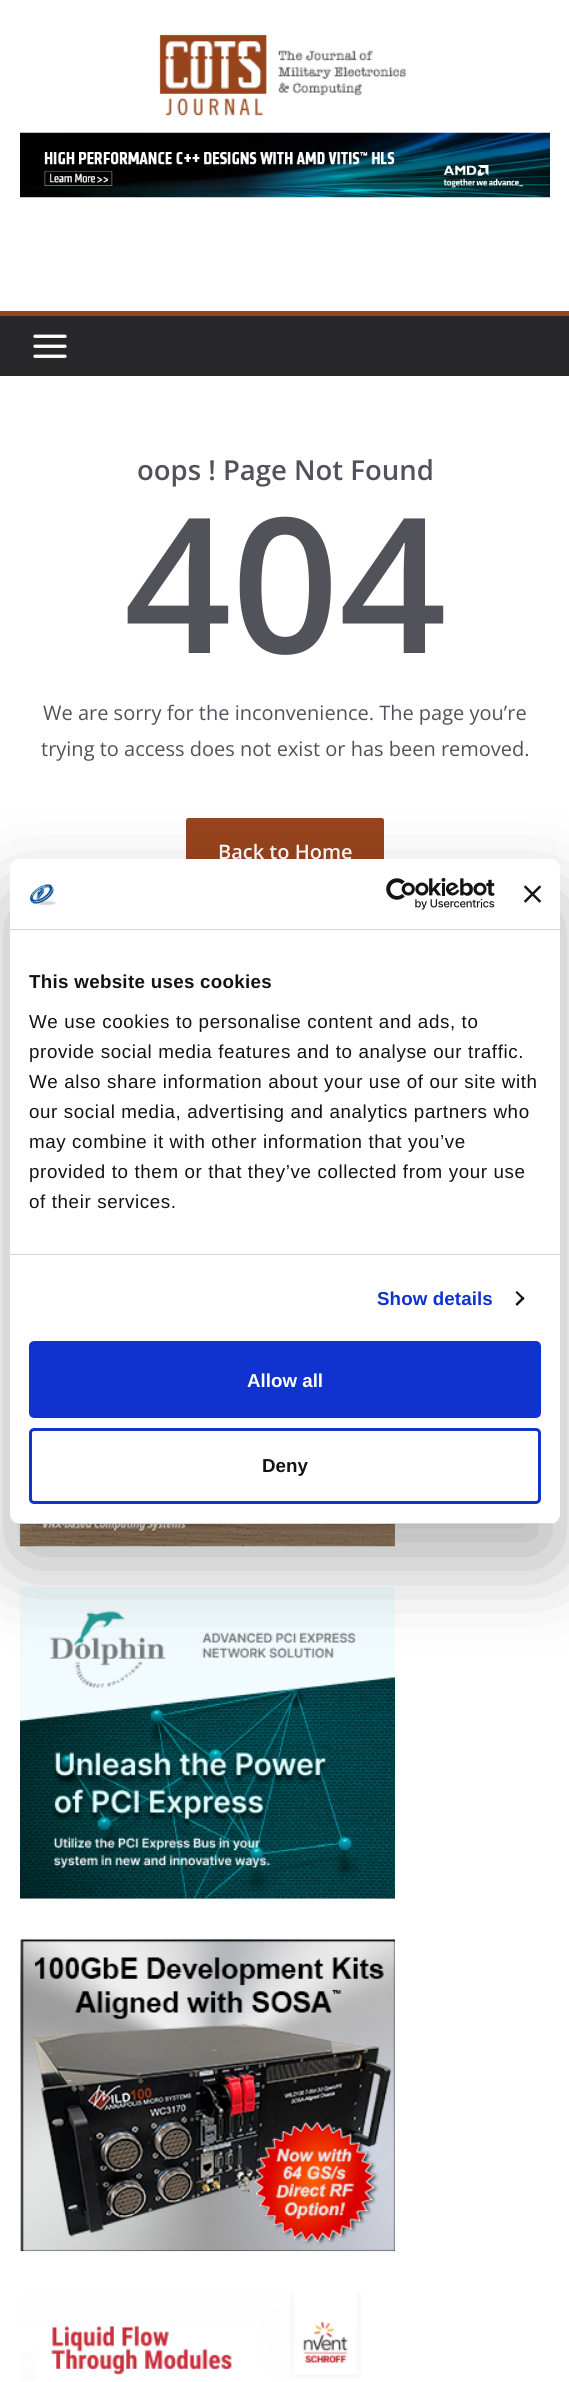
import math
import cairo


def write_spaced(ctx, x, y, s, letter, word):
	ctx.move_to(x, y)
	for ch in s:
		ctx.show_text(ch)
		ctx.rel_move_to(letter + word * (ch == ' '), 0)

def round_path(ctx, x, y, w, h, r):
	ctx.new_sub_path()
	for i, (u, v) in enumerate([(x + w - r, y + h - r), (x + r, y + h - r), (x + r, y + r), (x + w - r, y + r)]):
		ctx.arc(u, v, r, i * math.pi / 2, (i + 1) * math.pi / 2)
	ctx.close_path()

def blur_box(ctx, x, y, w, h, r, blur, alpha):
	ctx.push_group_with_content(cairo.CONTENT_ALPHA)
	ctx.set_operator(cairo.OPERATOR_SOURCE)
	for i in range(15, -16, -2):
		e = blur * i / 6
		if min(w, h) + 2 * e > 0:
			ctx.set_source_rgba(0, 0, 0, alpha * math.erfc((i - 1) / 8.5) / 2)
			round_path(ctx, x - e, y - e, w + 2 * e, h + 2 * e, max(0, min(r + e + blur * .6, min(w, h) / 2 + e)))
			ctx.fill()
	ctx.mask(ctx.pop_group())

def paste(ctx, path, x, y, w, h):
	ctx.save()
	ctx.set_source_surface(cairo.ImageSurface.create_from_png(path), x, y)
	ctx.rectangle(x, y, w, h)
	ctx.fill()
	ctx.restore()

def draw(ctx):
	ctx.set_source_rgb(1, 1, 1)
	ctx.paint()
	paste(ctx, 'media/1.png', 159, 34, 248, 82)
	paste(ctx, 'media/2.png', 20, 132, 530, 66)
	ctx.set_source_rgb(0.153, 0.153, 0.165)
	ctx.rectangle(0, 316, 569, 60)
	ctx.fill()
	ctx.set_source_rgb(0.592, 0.267, 0.114)
	ctx.rectangle(0, 311, 569, 5)
	ctx.fill()
	paste(ctx, 'media/3.png', 33, 334, 34, 24)
	ctx.select_font_face('Open Sans SemiBold')
	ctx.set_font_size(27.5)
	ctx.set_source_rgb(0.322, 0.322, 0.357)
	ctx.move_to(137, 480)
	ctx.show_text('oops ! Page Not Found')
	ctx.set_font_size(188)
	ctx.move_to(124, 653)
	ctx.show_text('404')
	ctx.select_font_face('Open Sans')
	ctx.set_font_size(20)
	ctx.move_to(43, 720)
	ctx.show_text('We are sorry for the inconvenience. The page you’re')
	ctx.move_to(41, 756)
	ctx.show_text('trying to access does not exist or has been removed.')
	ctx.set_source_rgb(0.592, 0.267, 0.114)
	round_path(ctx, 186.5, 818.5, 197, 67, 2)
	ctx.fill_preserve()
	ctx.set_line_width(1)
	ctx.stroke()
	ctx.select_font_face('Open Sans SemiBold')
	ctx.set_source_rgb(1, 1, 1)
	ctx.move_to(218, 859)
	ctx.show_text('Back to Home')
	paste(ctx, 'media/4.png', 20, 1524, 375, 23)
	paste(ctx, 'media/5.png', 20, 1586, 375, 313)
	paste(ctx, 'media/6.png', 20, 1938, 375, 314)
	paste(ctx, 'media/7.png', 20, 2292, 341, 89)
	ctx.set_source_rgb(0, 0, 0)
	blur_box(ctx, 10, 899, 550, 665, 10, 42.5, 0.3)
	ctx.set_source_rgb(1, 1, 1)
	round_path(ctx, 10, 859, 550, 665, 10)
	ctx.fill()
	ctx.set_source_rgb(0.839, 0.839, 0.839)
	ctx.rectangle(10, 929, 550, 1)
	ctx.fill()
	paste(ctx, 'media/8.png', 29, 884, 27, 22)
	paste(ctx, 'media/9.png', 386, 878, 109, 32)
	paste(ctx, 'media/10.png', 524, 885, 17, 18)
	ctx.rectangle(10, 1254, 550, 1)
	ctx.fill()
	ctx.select_font_face('Liberation Sans', cairo.FONT_SLANT_NORMAL, cairo.FONT_WEIGHT_BOLD)
	ctx.set_font_size(18.75)
	ctx.set_source_rgb(0.078, 0.078, 0.078)
	write_spaced(ctx, 29, 988, 'This website uses cookies', 0.3, 0)
	ctx.select_font_face('Liberation Sans')
	for x, y, s in [
		(29, 1028, 'We use cookies to personalise content and ads, to'),
		(29, 1058, 'provide social media features and to analyse our traffic.'),
		(29, 1088, 'We also share information about your use of our site with'),
		(29, 1118, 'our social media, advertising and analytics partners who'),
		(29, 1148, 'may combine it with other information that you’ve'),
		(29, 1178, 'provided to them or that they’ve collected from your use'),
		(29, 1208, 'of their services.'),
	]:
		write_spaced(ctx, x, y, s, 0.62, 0)
	ctx.select_font_face('Liberation Sans', cairo.FONT_SLANT_NORMAL, cairo.FONT_WEIGHT_BOLD)
	ctx.set_source_rgb(0.063, 0.196, 0.812)
	write_spaced(ctx, 377, 1305, 'Show details', 0.1, 0)
	ctx.set_source_rgb(0.078, 0.078, 0.078)
	ctx.new_path()
	ctx.move_to(517, 1291)
	ctx.line_to(524.5, 1298.5)
	ctx.line_to(523, 1300)
	ctx.line_to(515.5, 1292.5)
	ctx.close_path()
	ctx.fill()
	ctx.new_path()
	ctx.move_to(523, 1296.5)
	ctx.line_to(524.5, 1298.5)
	ctx.line_to(517, 1306)
	ctx.line_to(515.5, 1304)
	ctx.close_path()
	ctx.fill()
	ctx.save()
	round_path(ctx, 10, 859, 550, 665, 10)
	ctx.clip()
	ctx.set_source_rgb(0.839, 0.839, 0.839)
	ctx.rectangle(10, 1523, 550, 1)
	ctx.fill()
	ctx.restore()
	ctx.set_source_rgb(0.063, 0.196, 0.812)
	round_path(ctx, 30.5, 1342.5, 509, 74, 3.5)
	ctx.fill_preserve()
	ctx.set_line_width(3)
	ctx.stroke()
	ctx.set_source_rgb(1, 1, 1)
	ctx.move_to(247, 1387)
	ctx.show_text('Allow all')
	round_path(ctx, 30.5, 1429.5, 509, 73, 3.5)
	ctx.set_source_rgb(0.063, 0.196, 0.812)
	ctx.stroke()
	ctx.set_source_rgb(0.078, 0.078, 0.078)
	ctx.move_to(262, 1472)
	ctx.show_text('Deny')


surface = cairo.ImageSurface(cairo.FORMAT_RGB24, 569, 2382)
ctx = cairo.Context(surface)
options = cairo.FontOptions()
options.set_hint_metrics(cairo.HINT_METRICS_OFF)
options.set_hint_style(cairo.HINT_STYLE_NONE)
ctx.set_font_options(options)
ctx.set_miter_limit(4)
draw(ctx)
surface.write_to_png('image.png')
